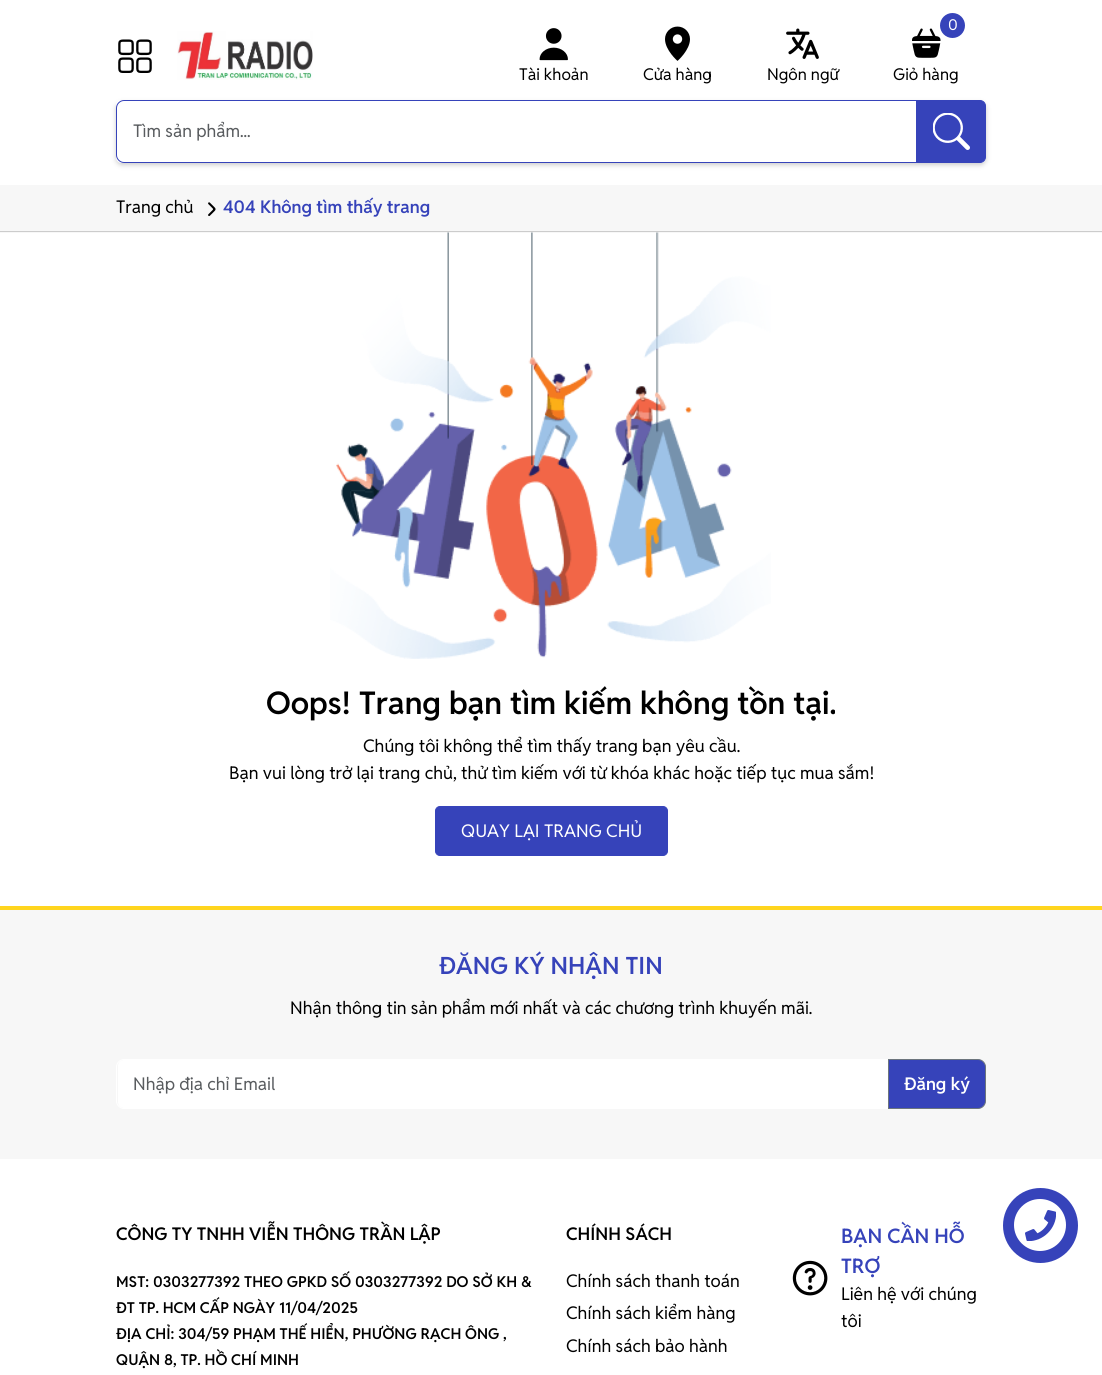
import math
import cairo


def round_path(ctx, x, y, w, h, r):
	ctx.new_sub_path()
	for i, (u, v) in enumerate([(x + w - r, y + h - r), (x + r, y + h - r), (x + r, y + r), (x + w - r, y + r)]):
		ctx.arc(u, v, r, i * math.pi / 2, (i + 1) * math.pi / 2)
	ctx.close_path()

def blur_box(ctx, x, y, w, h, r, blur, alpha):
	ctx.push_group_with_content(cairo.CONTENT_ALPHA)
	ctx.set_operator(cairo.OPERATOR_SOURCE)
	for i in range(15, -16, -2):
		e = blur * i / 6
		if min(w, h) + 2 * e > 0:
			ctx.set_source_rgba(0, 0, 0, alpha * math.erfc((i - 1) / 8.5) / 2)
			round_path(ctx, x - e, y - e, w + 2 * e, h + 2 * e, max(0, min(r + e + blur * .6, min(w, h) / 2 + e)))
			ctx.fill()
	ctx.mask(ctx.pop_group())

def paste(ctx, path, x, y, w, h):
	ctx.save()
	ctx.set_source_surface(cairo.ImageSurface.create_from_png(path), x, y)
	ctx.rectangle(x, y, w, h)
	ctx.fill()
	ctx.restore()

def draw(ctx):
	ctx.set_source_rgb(1, 1, 1)
	ctx.paint()
	paste(ctx, 'media/1.png', 118, 39, 34, 34)
	paste(ctx, 'media/2.png', 177, 31, 136, 49)
	paste(ctx, 'media/3.png', 539, 28, 29, 33)
	ctx.select_font_face('Reddit Sans')
	ctx.set_font_size(16.25)
	ctx.set_source_rgb(0, 0, 0)
	ctx.move_to(519, 80)
	ctx.show_text('Tài khoản')
	paste(ctx, 'media/4.png', 665, 26, 25, 35)
	ctx.move_to(643, 80)
	ctx.show_text('Cửa hàng')
	paste(ctx, 'media/5.png', 786, 28, 33, 31)
	ctx.move_to(767, 80)
	ctx.show_text('Ngôn ngữ')
	paste(ctx, 'media/6.png', 912, 28, 29, 30)
	ctx.set_source_rgb(0.212, 0.263, 0.729)
	ctx.arc(952.5, 25.5, 12.5, 0, 2 * math.pi)
	ctx.fill()
	ctx.set_font_size(15)
	ctx.set_source_rgb(1, 1, 1)
	ctx.move_to(948, 30)
	ctx.show_text('0')
	ctx.set_font_size(16.25)
	ctx.set_source_rgb(0, 0, 0)
	ctx.move_to(893, 80)
	ctx.show_text('Giỏ hàng')
	ctx.save()
	ctx.set_fill_rule(cairo.FILL_RULE_EVEN_ODD)
	ctx.new_path()
	ctx.move_to(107, 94)
	ctx.line_to(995, 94)
	ctx.line_to(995, 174)
	ctx.line_to(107, 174)
	ctx.close_path()
	ctx.move_to(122, 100)
	ctx.line_to(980, 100)
	ctx.curve_to(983.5, 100, 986, 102.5, 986, 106)
	ctx.line_to(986, 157)
	ctx.curve_to(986, 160.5, 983.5, 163, 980, 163)
	ctx.line_to(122, 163)
	ctx.curve_to(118.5, 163, 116, 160.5, 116, 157)
	ctx.line_to(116, 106)
	ctx.curve_to(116, 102.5, 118.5, 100, 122, 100)
	ctx.close_path()
	ctx.clip()
	ctx.set_source_rgb(0.8, 0.8, 0.8)
	blur_box(ctx, 116, 103, 870, 62, 6, 2.5, 1)
	ctx.restore()
	ctx.new_path()
	ctx.move_to(124, 100.5)
	ctx.line_to(917.5, 100.5)
	ctx.line_to(917.5, 162.5)
	ctx.line_to(124, 162.5)
	ctx.curve_to(120, 162.5, 116.5, 159, 116.5, 155)
	ctx.line_to(116.5, 108)
	ctx.curve_to(116.5, 104, 120, 100.5, 124, 100.5)
	ctx.close_path()
	ctx.set_source_rgb(0.212, 0.263, 0.729)
	ctx.set_line_width(1)
	ctx.stroke()
	ctx.set_font_size(17.5)
	ctx.set_source_rgb(0.349, 0.361, 0.373)
	ctx.move_to(133, 137)
	ctx.show_text('Tìm sản phẩm...')
	ctx.set_source_rgb(0.212, 0.263, 0.729)
	ctx.new_path()
	ctx.move_to(916.5, 100.5)
	ctx.line_to(980, 100.5)
	ctx.curve_to(983, 100.5, 985.5, 103, 985.5, 106)
	ctx.line_to(985.5, 157)
	ctx.curve_to(985.5, 160, 983, 162.5, 980, 162.5)
	ctx.line_to(916.5, 162.5)
	ctx.close_path()
	ctx.fill_preserve()
	ctx.stroke()
	paste(ctx, 'media/7.png', 933, 113, 37, 37)
	ctx.set_source_rgb(0.965, 0.965, 0.965)
	ctx.rectangle(0, 185, 1102, 48)
	ctx.fill()
	ctx.set_source_rgb(0.8, 0.8, 0.8)
	ctx.rectangle(0, 231, 1102, 1)
	ctx.fill()
	ctx.set_source_rgb(0, 0, 0)
	ctx.move_to(116, 213)
	ctx.show_text('Trang chủ')
	paste(ctx, 'media/8.png', 208, 202, 8, 14)
	ctx.select_font_face('Reddit Sans SemiBold')
	ctx.set_source_rgb(0.212, 0.263, 0.729)
	ctx.move_to(223, 213)
	ctx.show_text('404 Không tìm thấy trang')
	paste(ctx, 'media/9.png', 330, 232, 441, 427)
	ctx.set_font_size(31.25)
	ctx.set_source_rgb(0, 0, 0)
	ctx.move_to(266, 714)
	ctx.show_text('Oops! Trang bạn tìm kiếm không tồn tại.')
	ctx.select_font_face('Reddit Sans')
	ctx.set_font_size(17.5)
	ctx.move_to(363, 752)
	ctx.show_text('Chúng tôi không thể tìm thấy trang bạn yêu cầu.')
	ctx.move_to(229, 779)
	ctx.show_text('Bạn vui lòng trở lại trang chủ, thử tìm kiếm với từ khóa khác hoặc tiếp tục mua sắm!')
	ctx.set_source_rgb(0.212, 0.263, 0.729)
	round_path(ctx, 435.5, 806.5, 232, 49, 4.5)
	ctx.fill_preserve()
	ctx.stroke()
	ctx.set_source_rgb(1, 1, 1)
	ctx.move_to(461, 837)
	ctx.show_text('QUAY LẠI TRANG CHỦ')
	ctx.set_source_rgb(1, 0.835, 0.118)
	ctx.rectangle(0, 906, 1102, 4)
	ctx.fill()
	ctx.set_source_rgb(0.965, 0.965, 0.965)
	ctx.rectangle(0, 910, 1102, 249)
	ctx.fill()
	ctx.select_font_face('Reddit Sans SemiBold')
	ctx.set_font_size(23.75)
	ctx.set_source_rgb(0.212, 0.263, 0.729)
	ctx.move_to(439, 974)
	ctx.show_text('ĐĂNG KÝ NHẬN TIN')
	ctx.select_font_face('Reddit Sans')
	ctx.set_font_size(17.5)
	ctx.set_source_rgb(0, 0, 0)
	ctx.move_to(290, 1014)
	ctx.show_text('Nhận thông tin sản phẩm mới nhất và các chương trình khuyến mãi.')
	ctx.set_source_rgb(1, 1, 1)
	ctx.new_path()
	ctx.move_to(124, 1060)
	ctx.line_to(888, 1060)
	ctx.line_to(888, 1108)
	ctx.line_to(124, 1108)
	ctx.curve_to(120.5, 1108, 118, 1105.5, 118, 1102)
	ctx.line_to(118, 1066)
	ctx.curve_to(118, 1062.5, 120.5, 1060, 124, 1060)
	ctx.close_path()
	ctx.fill()
	ctx.new_path()
	ctx.move_to(124, 1059.5)
	ctx.line_to(888.5, 1059.5)
	ctx.line_to(888.5, 1108.5)
	ctx.line_to(124, 1108.5)
	ctx.curve_to(120, 1108.5, 116.5, 1105, 116.5, 1101)
	ctx.line_to(116.5, 1067)
	ctx.curve_to(116.5, 1063, 120, 1059.5, 124, 1059.5)
	ctx.close_path()
	ctx.stroke()
	ctx.set_source_rgb(0.349, 0.361, 0.373)
	ctx.move_to(133, 1090)
	ctx.show_text('Nhập địa chỉ Email')
	ctx.set_source_rgb(0.212, 0.263, 0.729)
	ctx.new_path()
	ctx.move_to(888.5, 1059.5)
	ctx.line_to(978, 1059.5)
	ctx.curve_to(982, 1059.5, 985.5, 1063, 985.5, 1067)
	ctx.line_to(985.5, 1101)
	ctx.curve_to(985.5, 1105, 982, 1108.5, 978, 1108.5)
	ctx.line_to(888.5, 1108.5)
	ctx.close_path()
	ctx.fill_preserve()
	ctx.set_source_rgb(0.424, 0.459, 0.49)
	ctx.stroke()
	ctx.select_font_face('Reddit Sans SemiBold')
	ctx.set_source_rgb(1, 1, 1)
	ctx.move_to(904, 1090)
	ctx.show_text('Đăng ký')
	ctx.set_source_rgb(0, 0, 0)
	ctx.move_to(116, 1240)
	ctx.show_text('CÔNG TY TNHH VIỄN THÔNG TRẦN LẬP')
	ctx.set_font_size(15)
	for x, y, s in [
		(116, 1287, 'MST: 0303277392 THEO GPKD SỐ 0303277392 DO SỞ KH &'),
		(116, 1313, 'ĐT TP. HCM CẤP NGÀY 11/04/2025'),
		(116, 1339, 'ĐỊA CHỈ: 304/59 PHẠM THẾ HIỂN, PHƯỜNG RẠCH ÔNG ,'),
		(116, 1365, 'QUẬN 8, TP. HỒ CHÍ MINH'),
	]:
		ctx.move_to(x, y)
		ctx.show_text(s)
	ctx.set_font_size(17.5)
	ctx.move_to(566, 1240)
	ctx.show_text('CHÍNH SÁCH')
	ctx.select_font_face('Reddit Sans')
	for x, y, s in [
		(566, 1287, 'Chính sách thanh toán'),
		(566, 1319, 'Chính sách kiểm hàng'),
		(566, 1352, 'Chính sách bảo hành'),
	]:
		ctx.move_to(x, y)
		ctx.show_text(s)
	paste(ctx, 'media/10.png', 792, 1260, 36, 36)
	ctx.select_font_face('Reddit Sans SemiBold')
	ctx.set_font_size(20)
	ctx.set_source_rgb(0.212, 0.263, 0.729)
	ctx.move_to(841, 1243)
	ctx.show_text('BẠN CẦN HỖ')
	ctx.move_to(841, 1273)
	ctx.show_text('TRỢ')
	ctx.select_font_face('Reddit Sans')
	ctx.set_font_size(17.5)
	ctx.set_source_rgb(0, 0, 0)
	ctx.move_to(841, 1300)
	ctx.show_text('Liên hệ với chúng')
	ctx.move_to(841, 1327)
	ctx.show_text('tôi')
	ctx.set_source_rgb(0.212, 0.263, 0.729)
	ctx.new_path()
	ctx.arc(1040.5, 1225.5, 37.5, 0, 2 * math.pi)
	ctx.fill()
	ctx.set_source_rgb(1, 1, 1)
	ctx.arc(1040, 1225, 26, 0, 2 * math.pi)
	ctx.fill()
	paste(ctx, 'media/11.png', 1025, 1210, 31, 31)


surface = cairo.ImageSurface(cairo.FORMAT_RGB24, 1102, 1375)
ctx = cairo.Context(surface)
options = cairo.FontOptions()
options.set_hint_metrics(cairo.HINT_METRICS_OFF)
options.set_hint_style(cairo.HINT_STYLE_NONE)
ctx.set_font_options(options)
ctx.set_miter_limit(4)
draw(ctx)
surface.write_to_png('image.png')
